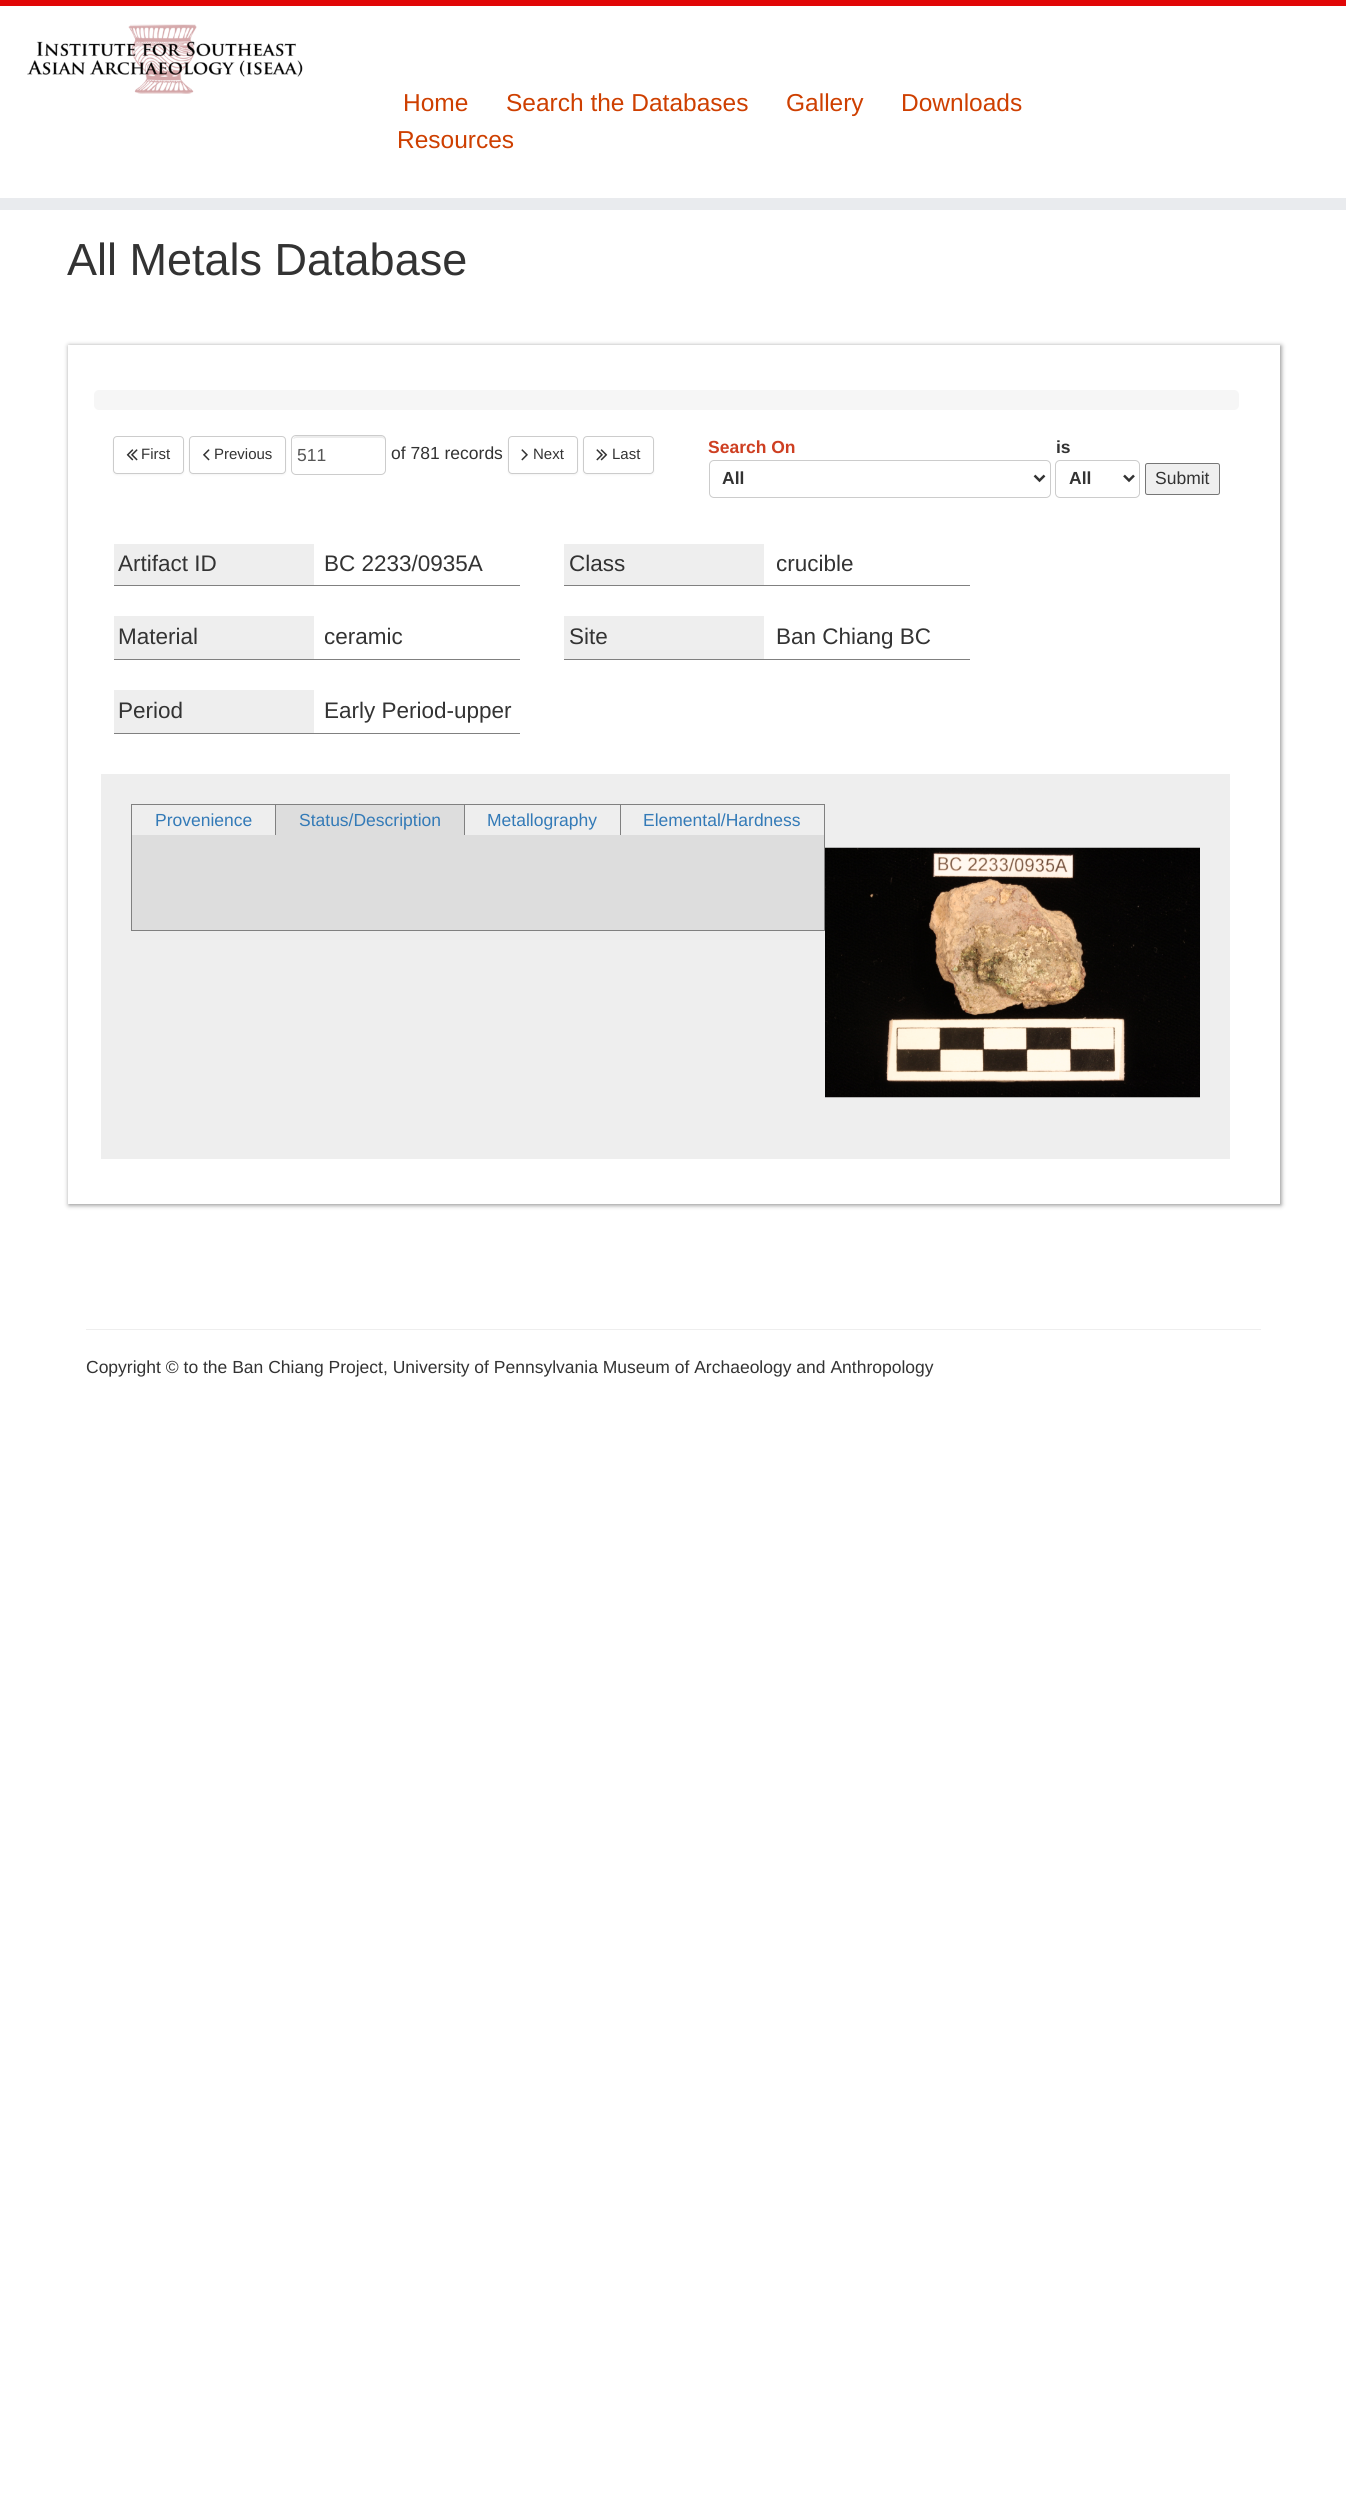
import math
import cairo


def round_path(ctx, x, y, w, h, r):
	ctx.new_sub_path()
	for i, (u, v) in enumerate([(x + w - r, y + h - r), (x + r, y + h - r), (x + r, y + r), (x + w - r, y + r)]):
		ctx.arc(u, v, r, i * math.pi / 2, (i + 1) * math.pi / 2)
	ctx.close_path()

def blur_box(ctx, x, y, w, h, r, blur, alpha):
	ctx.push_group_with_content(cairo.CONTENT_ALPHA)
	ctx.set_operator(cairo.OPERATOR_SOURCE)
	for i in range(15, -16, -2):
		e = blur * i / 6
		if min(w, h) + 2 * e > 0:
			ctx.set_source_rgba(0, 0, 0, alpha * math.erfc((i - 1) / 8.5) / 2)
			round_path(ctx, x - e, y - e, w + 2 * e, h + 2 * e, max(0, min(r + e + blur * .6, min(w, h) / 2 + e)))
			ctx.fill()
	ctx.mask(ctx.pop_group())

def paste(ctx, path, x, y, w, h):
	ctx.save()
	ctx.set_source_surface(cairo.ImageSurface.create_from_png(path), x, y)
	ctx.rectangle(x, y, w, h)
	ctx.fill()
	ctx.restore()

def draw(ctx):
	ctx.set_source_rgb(1, 1, 1)
	ctx.paint()
	ctx.set_source_rgb(0.882, 0.027, 0.027)
	ctx.rectangle(0, 0, 1346, 6)
	ctx.fill()
	ctx.set_source_rgb(0.914, 0.918, 0.933)
	ctx.rectangle(0, 198, 1346, 12)
	ctx.fill()
	paste(ctx, 'media/1.png', 27, 24, 276, 70)
	ctx.select_font_face('Liberation Sans')
	ctx.set_font_size(24.5)
	ctx.set_source_rgb(0.808, 0.247, 0)
	for x, y, s in [
		(403, 111, 'Home'),
		(506, 111, 'Search the Databases'),
		(786, 111, 'Gallery'),
		(901, 111, 'Downloads'),
		(397, 148, 'Resources'),
	]:
		ctx.move_to(x, y)
		ctx.show_text(s)
	ctx.set_font_size(45)
	ctx.set_source_rgb(0.2, 0.2, 0.2)
	ctx.move_to(67, 275)
	ctx.show_text('All Metals Database')
	ctx.save()
	ctx.set_fill_rule(cairo.FILL_RULE_EVEN_ODD)
	ctx.new_path()
	ctx.move_to(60, 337)
	ctx.line_to(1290, 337)
	ctx.line_to(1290, 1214)
	ctx.line_to(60, 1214)
	ctx.close_path()
	ctx.move_to(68, 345)
	ctx.line_to(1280, 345)
	ctx.line_to(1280, 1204)
	ctx.line_to(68, 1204)
	ctx.close_path()
	ctx.clip()
	ctx.set_source_rgb(0.533, 0.533, 0.533)
	blur_box(ctx, 69, 346, 1212, 859, 0, 2.5, 1)
	ctx.restore()
	ctx.set_source_rgb(0.961, 0.961, 0.961)
	round_path(ctx, 94, 390, 1145, 20, 5)
	ctx.fill()
	ctx.set_source_rgb(0, 0, 0)
	blur_box(ctx, 113, 438, 71, 37, 4, 1, 0.05)
	ctx.set_source_rgb(1, 1, 1)
	round_path(ctx, 113.5, 436.5, 70, 37, 3.5)
	ctx.fill_preserve()
	ctx.set_source_rgb(0.8, 0.8, 0.8)
	ctx.set_line_width(1)
	ctx.stroke()
	paste(ctx, 'media/2.png', 126, 449, 12, 12)
	ctx.set_font_size(15)
	ctx.set_source_rgb(0.2, 0.2, 0.2)
	ctx.move_to(141, 459)
	ctx.show_text('First')
	ctx.set_source_rgb(0, 0, 0)
	blur_box(ctx, 189, 438, 97, 37, 4, 1, 0.05)
	ctx.set_source_rgb(1, 1, 1)
	round_path(ctx, 189.5, 436.5, 96, 37, 3.5)
	ctx.fill_preserve()
	ctx.set_source_rgb(0.8, 0.8, 0.8)
	ctx.stroke()
	paste(ctx, 'media/3.png', 203, 449, 7, 12)
	ctx.set_source_rgb(0.2, 0.2, 0.2)
	ctx.move_to(214, 459)
	ctx.show_text('Previous')
	ctx.set_source_rgb(0.925, 0.925, 0.925)
	ctx.new_path()
	ctx.move_to(296, 438)
	ctx.line_to(381, 438)
	ctx.curve_to(383, 438, 385, 439, 385, 441)
	ctx.line_to(385, 440)
	ctx.curve_to(385, 438, 383, 436, 381, 436)
	ctx.line_to(297, 436)
	ctx.curve_to(295, 436, 294, 437, 293, 439)
	ctx.close_path()
	ctx.fill()
	round_path(ctx, 291.5, 435.5, 94, 39, 4.5)
	ctx.set_source_rgb(0.8, 0.8, 0.8)
	ctx.stroke()
	ctx.set_font_size(17.5)
	ctx.set_source_rgb(0.333, 0.333, 0.333)
	ctx.move_to(297, 461)
	ctx.show_text('511')
	ctx.set_source_rgb(0.2, 0.2, 0.2)
	ctx.move_to(391, 459)
	ctx.show_text('of 781 records')
	ctx.set_source_rgb(0, 0, 0)
	blur_box(ctx, 508, 438, 70, 37, 4, 1, 0.05)
	ctx.set_source_rgb(1, 1, 1)
	round_path(ctx, 508.5, 436.5, 69, 37, 3.5)
	ctx.fill_preserve()
	ctx.set_source_rgb(0.8, 0.8, 0.8)
	ctx.stroke()
	paste(ctx, 'media/4.png', 521, 449, 7, 12)
	ctx.set_font_size(15)
	ctx.set_source_rgb(0.2, 0.2, 0.2)
	ctx.move_to(533, 459)
	ctx.show_text('Next')
	ctx.set_source_rgb(0, 0, 0)
	blur_box(ctx, 583, 438, 71, 37, 4, 1, 0.05)
	ctx.set_source_rgb(1, 1, 1)
	round_path(ctx, 583.5, 436.5, 70, 37, 3.5)
	ctx.fill_preserve()
	ctx.set_source_rgb(0.8, 0.8, 0.8)
	ctx.stroke()
	paste(ctx, 'media/5.png', 596, 449, 12, 12)
	ctx.set_source_rgb(0.2, 0.2, 0.2)
	ctx.move_to(612, 459)
	ctx.show_text('Last')
	ctx.select_font_face('Liberation Sans', cairo.FONT_SLANT_NORMAL, cairo.FONT_WEIGHT_BOLD)
	ctx.set_font_size(17.5)
	ctx.set_source_rgb(0.808, 0.247, 0.133)
	ctx.move_to(708, 453)
	ctx.show_text('Search On')
	round_path(ctx, 709.5, 460.5, 341, 37, 4.5)
	ctx.set_source_rgb(0.8, 0.8, 0.8)
	ctx.stroke()
	ctx.new_path()
	ctx.move_to(1034.5, 475.5)
	ctx.line_to(1039.5, 480.5)
	ctx.line_to(1044.5, 475.5)
	ctx.set_source_rgb(0.2, 0.2, 0.2)
	ctx.set_line_width(2.5)
	ctx.stroke()
	ctx.move_to(722, 484)
	ctx.show_text('All')
	ctx.move_to(1056, 453)
	ctx.show_text('is')
	round_path(ctx, 1055.5, 460.5, 84, 37, 4.5)
	ctx.set_source_rgb(0.8, 0.8, 0.8)
	ctx.set_line_width(1)
	ctx.stroke()
	ctx.new_path()
	ctx.move_to(1124, 475.5)
	ctx.line_to(1129, 480.5)
	ctx.line_to(1134, 475.5)
	ctx.set_source_rgb(0.2, 0.2, 0.2)
	ctx.set_line_width(2.5)
	ctx.stroke()
	ctx.move_to(1069, 484)
	ctx.show_text('All')
	ctx.set_source_rgb(0.937, 0.937, 0.937)
	round_path(ctx, 1145.5, 463.5, 74, 31, 2)
	ctx.fill_preserve()
	ctx.set_source_rgb(0.463, 0.463, 0.463)
	ctx.set_line_width(1)
	ctx.stroke()
	ctx.select_font_face('Liberation Sans')
	ctx.set_source_rgb(0.2, 0.2, 0.2)
	ctx.move_to(1155, 484)
	ctx.show_text('Submit')
	ctx.set_source_rgb(0.502, 0.502, 0.502)
	ctx.rectangle(114, 585, 406, 1)
	ctx.fill()
	ctx.set_source_rgb(0.933, 0.933, 0.933)
	ctx.rectangle(114, 544, 200, 41)
	ctx.fill()
	ctx.set_font_size(22.5)
	ctx.set_source_rgb(0.2, 0.2, 0.2)
	ctx.move_to(118, 571)
	ctx.show_text('Artifact ID')
	ctx.move_to(324, 571)
	ctx.show_text('BC 2233/0935A')
	ctx.set_source_rgb(0.502, 0.502, 0.502)
	ctx.rectangle(564, 585, 406, 1)
	ctx.fill()
	ctx.set_source_rgb(0.933, 0.933, 0.933)
	ctx.rectangle(564, 544, 200, 41)
	ctx.fill()
	ctx.set_source_rgb(0.2, 0.2, 0.2)
	ctx.move_to(569, 571)
	ctx.show_text('Class')
	ctx.move_to(776, 571)
	ctx.show_text('crucible')
	ctx.set_source_rgb(0.502, 0.502, 0.502)
	ctx.rectangle(114, 659, 406, 1)
	ctx.fill()
	ctx.set_source_rgb(0.933, 0.933, 0.933)
	ctx.rectangle(114, 616, 200, 43)
	ctx.fill()
	ctx.set_source_rgb(0.2, 0.2, 0.2)
	ctx.move_to(118, 644)
	ctx.show_text('Material')
	ctx.move_to(324, 644)
	ctx.show_text('ceramic')
	ctx.set_source_rgb(0.502, 0.502, 0.502)
	ctx.rectangle(564, 659, 406, 1)
	ctx.fill()
	ctx.set_source_rgb(0.933, 0.933, 0.933)
	ctx.rectangle(564, 616, 200, 43)
	ctx.fill()
	ctx.set_source_rgb(0.2, 0.2, 0.2)
	ctx.move_to(569, 644)
	ctx.show_text('Site')
	ctx.move_to(776, 644)
	ctx.show_text('Ban Chiang BC')
	ctx.set_source_rgb(0.502, 0.502, 0.502)
	ctx.rectangle(114, 733, 406, 1)
	ctx.fill()
	ctx.set_source_rgb(0.933, 0.933, 0.933)
	ctx.rectangle(114, 690, 200, 43)
	ctx.fill()
	ctx.set_source_rgb(0.2, 0.2, 0.2)
	ctx.move_to(118, 718)
	ctx.show_text('Period')
	ctx.move_to(324, 718)
	ctx.show_text('Early Period-upper')
	ctx.set_source_rgb(0.933, 0.933, 0.933)
	ctx.rectangle(101, 774, 1129, 385)
	ctx.fill()
	ctx.set_source_rgb(0.867, 0.867, 0.867)
	ctx.rectangle(131.5, 834.5, 693, 96)
	ctx.fill_preserve()
	ctx.set_source_rgb(0.502, 0.502, 0.502)
	ctx.stroke()
	ctx.set_source_rgb(0.933, 0.933, 0.933)
	ctx.rectangle(132, 834, 692, 1)
	ctx.fill()
	ctx.set_source_rgb(0.502, 0.502, 0.502)
	ctx.rectangle(131, 804, 694, 1)
	ctx.rectangle(275, 804, 1, 31)
	ctx.rectangle(131, 804, 1, 31)
	ctx.fill()
	ctx.set_font_size(17.5)
	ctx.set_source_rgb(0.2, 0.478, 0.718)
	ctx.move_to(155, 826)
	ctx.show_text('Provenience')
	ctx.set_source_rgb(0.867, 0.867, 0.867)
	ctx.rectangle(276, 805, 188, 30)
	ctx.fill()
	ctx.set_source_rgb(0.502, 0.502, 0.502)
	ctx.rectangle(464, 804, 1, 31)
	ctx.fill()
	ctx.set_source_rgb(0.2, 0.478, 0.718)
	ctx.move_to(299, 826)
	ctx.show_text('Status/Description')
	ctx.set_source_rgb(0.502, 0.502, 0.502)
	ctx.rectangle(620, 804, 1, 31)
	ctx.fill()
	ctx.set_source_rgb(0.2, 0.478, 0.718)
	ctx.move_to(487, 826)
	ctx.show_text('Metallography')
	ctx.set_source_rgb(0.502, 0.502, 0.502)
	ctx.rectangle(824, 804, 1, 31)
	ctx.fill()
	ctx.set_source_rgb(0.2, 0.478, 0.718)
	ctx.move_to(643, 826)
	ctx.show_text('Elemental/Hardness')
	paste(ctx, 'media/6.png', 825, 847, 375, 251)
	ctx.set_source_rgb(0.933, 0.933, 0.933)
	ctx.rectangle(86, 1329, 1175, 1)
	ctx.fill()
	ctx.set_source_rgb(0.2, 0.2, 0.2)
	ctx.move_to(86, 1373)
	ctx.show_text('Copyright © to the Ban Chiang Project, University of Pennsylvania Museum of Archaeology and Anthropology')


surface = cairo.ImageSurface(cairo.FORMAT_RGB24, 1346, 2502)
ctx = cairo.Context(surface)
options = cairo.FontOptions()
options.set_hint_metrics(cairo.HINT_METRICS_OFF)
options.set_hint_style(cairo.HINT_STYLE_NONE)
ctx.set_font_options(options)
ctx.set_miter_limit(4)
draw(ctx)
surface.write_to_png('image.png')
